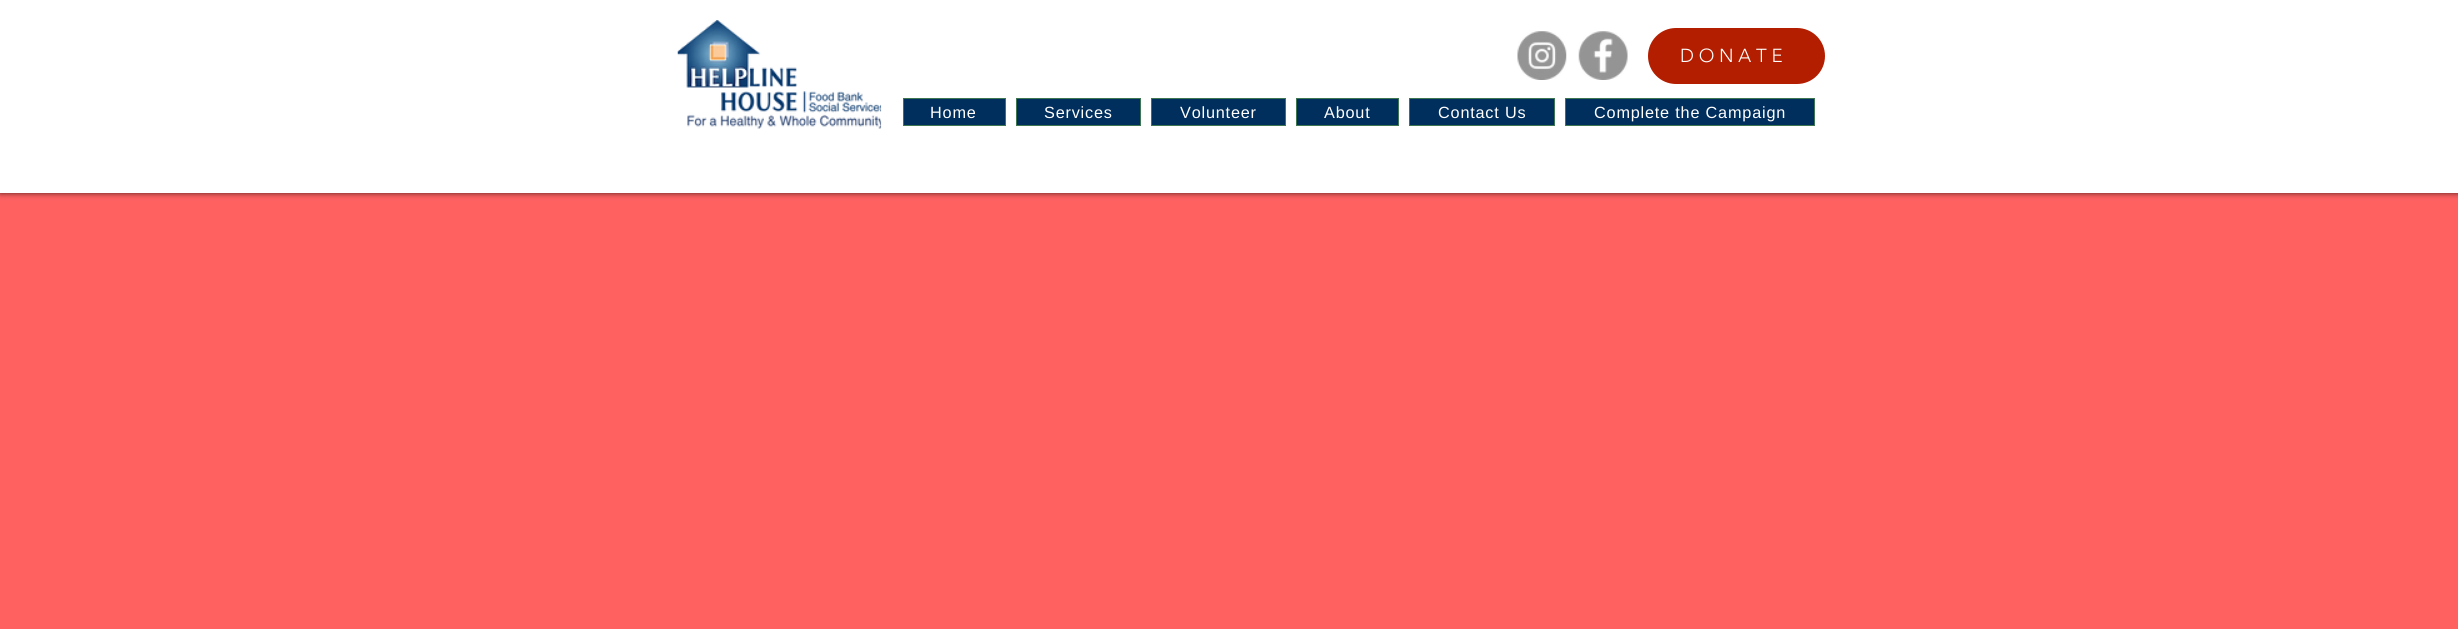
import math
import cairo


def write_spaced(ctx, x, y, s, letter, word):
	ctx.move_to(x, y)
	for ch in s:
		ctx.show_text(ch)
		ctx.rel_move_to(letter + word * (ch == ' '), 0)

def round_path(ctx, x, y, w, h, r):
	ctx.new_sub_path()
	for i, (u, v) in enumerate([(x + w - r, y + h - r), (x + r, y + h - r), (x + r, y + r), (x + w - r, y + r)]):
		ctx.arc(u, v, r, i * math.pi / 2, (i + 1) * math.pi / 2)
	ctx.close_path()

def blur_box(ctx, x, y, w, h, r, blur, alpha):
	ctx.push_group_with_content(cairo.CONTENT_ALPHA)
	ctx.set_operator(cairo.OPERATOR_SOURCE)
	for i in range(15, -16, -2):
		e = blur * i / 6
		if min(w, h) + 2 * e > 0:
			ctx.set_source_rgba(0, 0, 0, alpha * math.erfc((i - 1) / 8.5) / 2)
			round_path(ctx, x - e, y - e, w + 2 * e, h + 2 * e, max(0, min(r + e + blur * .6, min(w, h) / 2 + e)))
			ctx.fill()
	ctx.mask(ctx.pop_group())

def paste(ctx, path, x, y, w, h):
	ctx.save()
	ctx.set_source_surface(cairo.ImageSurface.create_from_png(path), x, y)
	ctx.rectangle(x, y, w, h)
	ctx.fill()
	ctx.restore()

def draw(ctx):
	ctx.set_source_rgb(1, 1, 1)
	ctx.paint()
	ctx.set_source_rgb(1, 0.38, 0.38)
	ctx.rectangle(0, 193, 2458, 436)
	ctx.fill()
	ctx.save()
	ctx.set_fill_rule(cairo.FILL_RULE_EVEN_ODD)
	ctx.new_path()
	ctx.move_to(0, 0)
	ctx.line_to(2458, 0)
	ctx.line_to(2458, 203)
	ctx.line_to(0, 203)
	ctx.close_path()
	ctx.move_to(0, 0)
	ctx.line_to(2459, 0)
	ctx.line_to(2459, 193)
	ctx.line_to(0, 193)
	ctx.close_path()
	ctx.clip()
	ctx.set_source_rgb(0, 0, 0)
	blur_box(ctx, 0, 0, 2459, 193, 0, 3, 0.7)
	ctx.restore()
	ctx.set_source_rgba(1, 1, 1, 0.98)
	ctx.rectangle(0, 192, 2458, 1)
	ctx.fill()
	paste(ctx, 'media/1.png', 677, 20, 205, 109)
	paste(ctx, 'media/2.png', 1517, 31, 50, 49)
	paste(ctx, 'media/3.png', 1578, 31, 50, 49)
	ctx.set_source_rgb(0.702, 0.118, 0)
	round_path(ctx, 1648, 28, 177, 56, 28)
	ctx.fill()
	ctx.select_font_face('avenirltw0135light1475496 Light')
	ctx.set_font_size(18.75)
	ctx.set_source_rgb(1, 1, 1)
	write_spaced(ctx, 1680, 62, 'DONATE', 4.75, 0)
	ctx.set_source_rgb(0, 0.18, 0.365)
	ctx.rectangle(903.5, 98.5, 102, 27)
	ctx.fill_preserve()
	ctx.set_source_rgb(0.247, 0.463, 0.322)
	ctx.set_line_width(1)
	ctx.stroke()
	ctx.select_font_face('Liberation Sans')
	ctx.set_font_size(16.25)
	ctx.set_source_rgb(1, 1, 1)
	write_spaced(ctx, 930, 118, 'Home', 0.8, 0)
	ctx.set_source_rgb(0, 0.18, 0.365)
	ctx.rectangle(1016.5, 98.5, 124, 27)
	ctx.fill_preserve()
	ctx.set_source_rgb(0.247, 0.463, 0.322)
	ctx.stroke()
	ctx.set_source_rgb(1, 1, 1)
	write_spaced(ctx, 1044, 118, 'Services', 0.8, 0)
	ctx.set_source_rgb(0, 0.18, 0.365)
	ctx.rectangle(1151.5, 98.5, 134, 27)
	ctx.fill_preserve()
	ctx.set_source_rgb(0.247, 0.463, 0.322)
	ctx.stroke()
	ctx.set_source_rgb(1, 1, 1)
	write_spaced(ctx, 1180, 118, 'Volunteer', 0.8, 0)
	ctx.set_source_rgb(0, 0.18, 0.365)
	ctx.rectangle(1296.5, 98.5, 102, 27)
	ctx.fill_preserve()
	ctx.set_source_rgb(0.247, 0.463, 0.322)
	ctx.stroke()
	ctx.set_source_rgb(1, 1, 1)
	write_spaced(ctx, 1324, 118, 'About', 0.8, 0)
	ctx.set_source_rgb(0, 0.18, 0.365)
	ctx.rectangle(1409.5, 98.5, 145, 27)
	ctx.fill_preserve()
	ctx.set_source_rgb(0.247, 0.463, 0.322)
	ctx.stroke()
	ctx.set_source_rgb(1, 1, 1)
	write_spaced(ctx, 1438, 118, 'Contact Us', 0.8, 0)
	ctx.set_source_rgb(0, 0.18, 0.365)
	ctx.rectangle(1565.5, 98.5, 249, 27)
	ctx.fill_preserve()
	ctx.set_source_rgb(0.247, 0.463, 0.322)
	ctx.stroke()
	ctx.set_source_rgb(1, 1, 1)
	write_spaced(ctx, 1594, 118, 'Complete the Campaign', 0.8, 0)


surface = cairo.ImageSurface(cairo.FORMAT_RGB24, 2458, 629)
ctx = cairo.Context(surface)
options = cairo.FontOptions()
options.set_hint_metrics(cairo.HINT_METRICS_OFF)
options.set_hint_style(cairo.HINT_STYLE_NONE)
ctx.set_font_options(options)
ctx.set_miter_limit(4)
draw(ctx)
surface.write_to_png('image.png')
